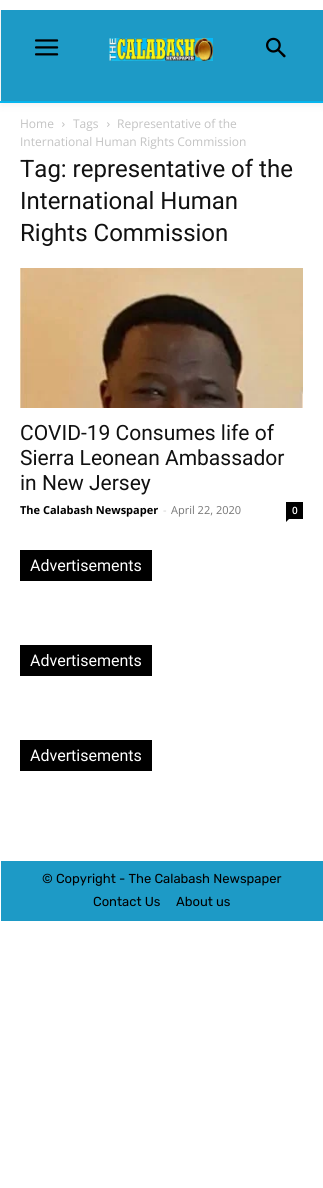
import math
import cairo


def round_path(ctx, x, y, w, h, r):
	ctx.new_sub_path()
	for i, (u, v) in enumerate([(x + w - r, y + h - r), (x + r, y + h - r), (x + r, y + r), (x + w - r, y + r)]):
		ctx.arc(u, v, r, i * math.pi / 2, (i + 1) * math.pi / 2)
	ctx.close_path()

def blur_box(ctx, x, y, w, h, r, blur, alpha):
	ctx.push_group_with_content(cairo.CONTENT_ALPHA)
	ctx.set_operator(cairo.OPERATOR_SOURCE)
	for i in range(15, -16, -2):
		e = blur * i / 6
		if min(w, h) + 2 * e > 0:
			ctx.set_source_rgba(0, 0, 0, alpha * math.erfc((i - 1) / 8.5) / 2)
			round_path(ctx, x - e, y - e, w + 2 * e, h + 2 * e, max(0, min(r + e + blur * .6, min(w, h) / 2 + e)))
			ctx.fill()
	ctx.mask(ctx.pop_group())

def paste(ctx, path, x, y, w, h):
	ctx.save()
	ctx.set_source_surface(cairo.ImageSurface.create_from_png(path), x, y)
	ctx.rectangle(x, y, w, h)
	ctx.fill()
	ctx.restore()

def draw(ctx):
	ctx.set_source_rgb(1, 1, 1)
	ctx.paint()
	ctx.set_source_rgb(0.027, 0.745, 0.98)
	ctx.rectangle(0, 101, 323, 2)
	ctx.fill()
	ctx.set_source_rgb(0.114, 0.604, 0.776)
	ctx.rectangle(1, 10, 322, 91)
	ctx.fill()
	paste(ctx, 'media/1.png', 35, 39, 24, 17)
	paste(ctx, 'media/2.png', 109, 38, 104, 23)
	paste(ctx, 'media/3.png', 266, 37, 20, 21)
	ctx.save()
	ctx.rectangle(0, 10, 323, 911)
	ctx.clip()
	ctx.set_fill_rule(cairo.FILL_RULE_EVEN_ODD)
	ctx.new_path()
	ctx.move_to(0, 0)
	ctx.line_to(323, 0)
	ctx.line_to(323, 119)
	ctx.line_to(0, 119)
	ctx.close_path()
	ctx.move_to(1, 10)
	ctx.line_to(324, 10)
	ctx.line_to(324, 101)
	ctx.line_to(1, 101)
	ctx.close_path()
	ctx.clip()
	ctx.set_source_rgb(0, 0, 0)
	blur_box(ctx, 1, 12, 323, 91, 0, 5, 0.09)
	ctx.restore()
	ctx.select_font_face('Open Sans')
	ctx.set_font_size(12)
	ctx.set_source_rgb(0.765, 0.765, 0.765)
	ctx.move_to(20, 128)
	ctx.show_text('Home')
	paste(ctx, 'media/4.png', 62, 122, 3, 5)
	ctx.move_to(73, 128)
	ctx.show_text('Tags')
	paste(ctx, 'media/4.png', 107, 122, 3, 5)
	ctx.move_to(117, 128)
	ctx.show_text('Representative of the')
	ctx.move_to(20, 146)
	ctx.show_text('International Human Rights Commission')
	ctx.select_font_face('Roboto')
	ctx.set_font_size(24)
	ctx.set_source_rgb(0.067, 0.067, 0.067)
	for x, y, s in [
		(20, 177, 'Tag: representative of the'),
		(20, 209, 'International Human'),
		(20, 241, 'Rights Commission'),
	]:
		ctx.move_to(x, y)
		ctx.show_text(s)
	paste(ctx, 'media/5.png', 20, 268, 283, 140)
	ctx.set_font_size(21)
	for x, y, s in [
		(20, 440, 'COVID-19 Consumes life of'),
		(20, 465, 'Sierra Leonean Ambassador'),
		(20, 490, 'in New Jersey'),
	]:
		ctx.move_to(x, y)
		ctx.show_text(s)
	ctx.select_font_face('Open Sans', cairo.FONT_SLANT_NORMAL, cairo.FONT_WEIGHT_BOLD)
	ctx.set_font_size(11)
	ctx.set_source_rgb(0, 0, 0)
	ctx.move_to(20, 514)
	ctx.show_text('The Calabash Newspaper')
	ctx.select_font_face('Open Sans')
	ctx.set_source_rgb(0.8, 0.8, 0.8)
	ctx.move_to(163, 514)
	ctx.show_text('-')
	ctx.set_source_rgb(0.463, 0.463, 0.463)
	ctx.move_to(171, 514)
	ctx.show_text('April 22, 2020')
	ctx.set_source_rgb(0, 0, 0)
	ctx.rectangle(286, 502, 17, 17)
	ctx.fill()
	ctx.select_font_face('Open Sans SemiBold')
	ctx.set_font_size(10)
	ctx.set_source_rgb(1, 1, 1)
	ctx.move_to(292, 514)
	ctx.show_text('0')
	ctx.set_source_rgb(0, 0, 0)
	ctx.new_path()
	ctx.move_to(286, 519)
	ctx.line_to(289, 519)
	ctx.line_to(286, 522)
	ctx.close_path()
	ctx.fill()
	ctx.rectangle(20, 550, 132, 31)
	ctx.fill()
	ctx.select_font_face('Roboto')
	ctx.set_font_size(16)
	ctx.set_source_rgb(1, 1, 1)
	ctx.move_to(30, 571)
	ctx.show_text('Advertisements')
	ctx.set_source_rgb(0, 0, 0)
	ctx.rectangle(20, 645, 132, 31)
	ctx.fill()
	ctx.set_source_rgb(1, 1, 1)
	ctx.move_to(30, 666)
	ctx.show_text('Advertisements')
	ctx.set_source_rgb(0, 0, 0)
	ctx.rectangle(20, 740, 132, 31)
	ctx.fill()
	ctx.set_source_rgb(1, 1, 1)
	ctx.move_to(30, 761)
	ctx.show_text('Advertisements')
	ctx.set_source_rgb(0.114, 0.604, 0.776)
	ctx.rectangle(1, 861, 322, 60)
	ctx.fill()
	ctx.select_font_face('Rubik Light')
	ctx.set_font_size(13)
	ctx.set_source_rgb(0, 0, 0)
	for x, y, s in [
		(42, 883, '© Copyright - The Calabash Newspaper'),
		(93, 906, 'Contact Us'),
		(176, 906, 'About us'),
	]:
		ctx.move_to(x, y)
		ctx.show_text(s)


surface = cairo.ImageSurface(cairo.FORMAT_RGB24, 323, 1188)
ctx = cairo.Context(surface)
options = cairo.FontOptions()
options.set_hint_metrics(cairo.HINT_METRICS_OFF)
options.set_hint_style(cairo.HINT_STYLE_NONE)
ctx.set_font_options(options)
ctx.set_miter_limit(4)
draw(ctx)
surface.write_to_png('image.png')
